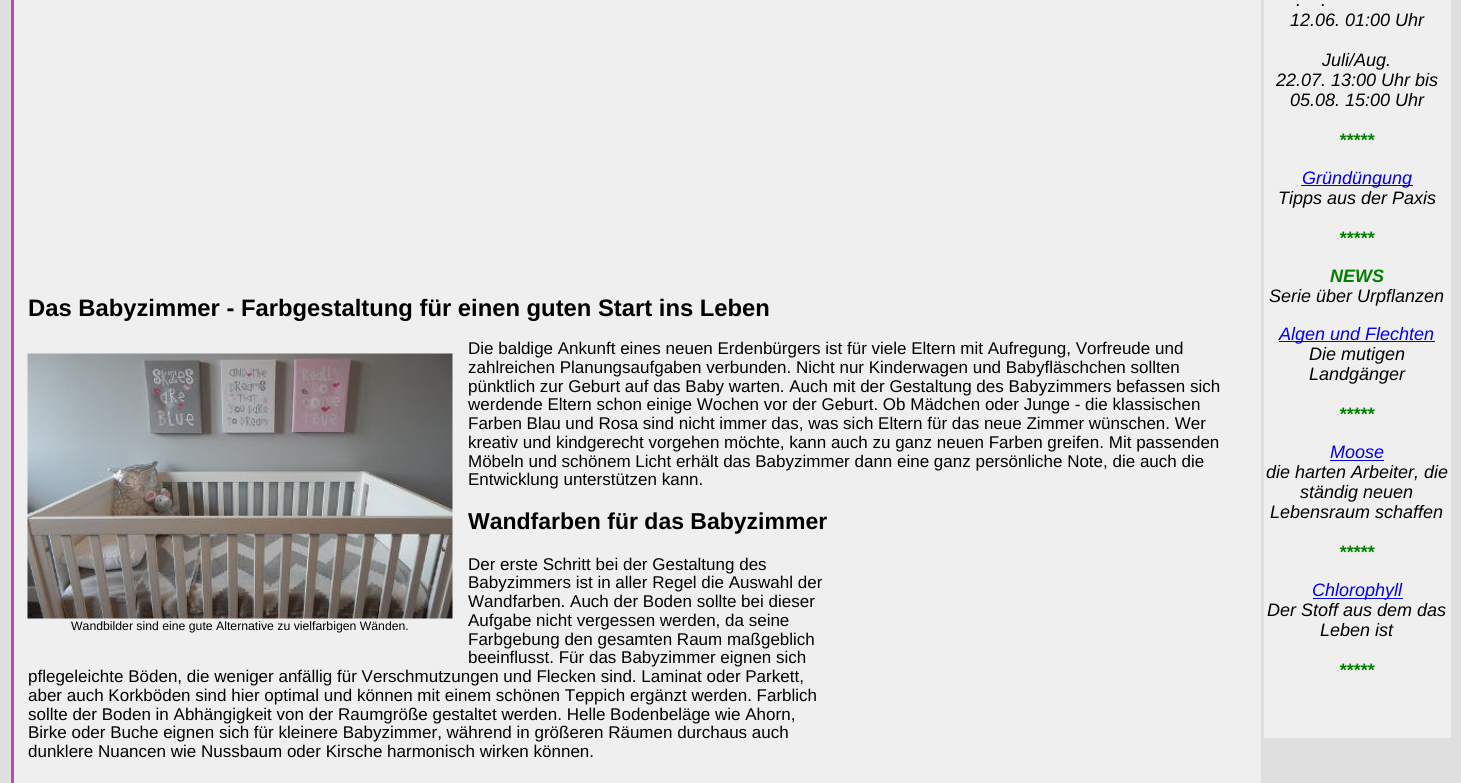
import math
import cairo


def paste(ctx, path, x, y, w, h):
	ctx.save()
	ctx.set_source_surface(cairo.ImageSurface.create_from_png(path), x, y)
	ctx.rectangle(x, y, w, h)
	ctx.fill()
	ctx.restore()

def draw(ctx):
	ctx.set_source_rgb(0.875, 0.875, 0.875)
	ctx.paint()
	ctx.set_source_rgb(0.937, 0.937, 0.937)
	ctx.rectangle(14, 0, 1247, 783)
	ctx.fill()
	ctx.set_source_rgb(0.718, 0.294, 0.71)
	ctx.rectangle(11, 0, 3, 783)
	ctx.fill()
	ctx.select_font_face('Liberation Sans', cairo.FONT_SLANT_NORMAL, cairo.FONT_WEIGHT_BOLD)
	ctx.set_font_size(23.8)
	ctx.set_source_rgb(0, 0, 0)
	ctx.move_to(28, 316)
	ctx.show_text('Das Babyzimmer - Farbgestaltung für einen guten Start ins Leben')
	ctx.select_font_face('Liberation Sans')
	ctx.set_font_size(17)
	for x, y, s in [
		(468, 354, 'Die baldige Ankunft eines neuen Erdenbürgers ist für viele Eltern mit Aufregung, Vorfreude und'),
		(468, 373, 'zahlreichen Planungsaufgaben verbunden. Nicht nur Kinderwagen und Babyfläschchen sollten'),
		(468, 392, 'pünktlich zur Geburt auf das Baby warten. Auch mit der Gestaltung des Babyzimmers befassen sich'),
		(468, 410, 'werdende Eltern schon einige Wochen vor der Geburt. Ob Mädchen oder Junge - die klassischen'),
		(468, 429, 'Farben Blau und Rosa sind nicht immer das, was sich Eltern für das neue Zimmer wünschen. Wer'),
		(468, 448, 'kreativ und kindgerecht vorgehen möchte, kann auch zu ganz neuen Farben greifen. Mit passenden'),
		(468, 467, 'Möbeln und schönem Licht erhält das Babyzimmer dann eine ganz persönliche Note, die auch die'),
		(468, 485, 'Entwicklung unterstützen kann.'),
	]:
		ctx.move_to(x, y)
		ctx.show_text(s)
	ctx.select_font_face('Liberation Sans', cairo.FONT_SLANT_NORMAL, cairo.FONT_WEIGHT_BOLD)
	ctx.set_font_size(23)
	ctx.move_to(468, 529)
	ctx.show_text('Wandfarben für das Babyzimmer')
	ctx.select_font_face('Liberation Sans')
	ctx.set_font_size(17)
	for x, y, s in [
		(468, 570, 'Der erste Schritt bei der Gestaltung des'),
		(468, 588, 'Babyzimmers ist in aller Regel die Auswahl der'),
		(468, 607, 'Wandfarben. Auch der Boden sollte bei dieser'),
	]:
		ctx.move_to(x, y)
		ctx.show_text(s)
	paste(ctx, 'media/1.png', 27, 353, 426, 266)
	ctx.set_font_size(12.25)
	ctx.move_to(71, 630)
	ctx.show_text('Wandbilder sind eine gute Alternative zu vielfarbigen Wänden.')
	ctx.set_font_size(17)
	for x, y, s in [
		(468, 626, 'Aufgabe nicht vergessen werden, da seine'),
		(468, 645, 'Farbgebung den gesamten Raum maßgeblich'),
		(468, 663, 'beeinflusst. Für das Babyzimmer eignen sich'),
		(28, 682, 'pflegeleichte Böden, die weniger anfällig für Verschmutzungen und Flecken sind. Laminat oder Parkett,'),
		(28, 701, 'aber auch Korkböden sind hier optimal und können mit einem schönen Teppich ergänzt werden. Farblich'),
		(28, 720, 'sollte der Boden in Abhängigkeit von der Raumgröße gestaltet werden. Helle Bodenbeläge wie Ahorn,'),
		(28, 738, 'Birke oder Buche eignen sich für kleinere Babyzimmer, während in größeren Räumen durchaus auch'),
		(28, 757, 'dunklere Nuancen wie Nussbaum oder Kirsche harmonisch wirken können.'),
	]:
		ctx.move_to(x, y)
		ctx.show_text(s)
	ctx.set_source_rgb(0.937, 0.937, 0.937)
	ctx.rectangle(1264, 0, 187, 738)
	ctx.fill()
	ctx.select_font_face('Liberation Sans', cairo.FONT_SLANT_ITALIC)
	ctx.set_font_size(18)
	ctx.set_source_rgb(0, 0, 0)
	for x, y, s in [
		(1296, 6, '.'),
		(1321, 6, '.'),
		(1290, 26, '12.06. 01:00 Uhr'),
		(1322, 66, 'Juli/Aug.'),
		(1276, 86, '22.07. 13:00 Uhr bis'),
		(1290, 106, '05.08. 15:00 Uhr'),
	]:
		ctx.move_to(x, y)
		ctx.show_text(s)
	ctx.select_font_face('Liberation Sans', cairo.FONT_SLANT_ITALIC, cairo.FONT_WEIGHT_BOLD)
	ctx.set_source_rgb(0, 0.502, 0)
	ctx.move_to(1339, 146)
	ctx.show_text('*****')
	ctx.set_source_rgb(0, 0, 0.933)
	ctx.rectangle(1301, 185, 112, 1)
	ctx.fill()
	ctx.select_font_face('Liberation Sans', cairo.FONT_SLANT_ITALIC)
	ctx.move_to(1302, 184)
	ctx.show_text('Gründüngung')
	ctx.set_source_rgb(0, 0, 0)
	ctx.move_to(1278, 204)
	ctx.show_text('Tipps aus der Paxis')
	ctx.select_font_face('Liberation Sans', cairo.FONT_SLANT_ITALIC, cairo.FONT_WEIGHT_BOLD)
	ctx.set_source_rgb(0, 0.502, 0)
	ctx.move_to(1339, 244)
	ctx.show_text('*****')
	ctx.move_to(1330, 282)
	ctx.show_text('NEWS')
	ctx.select_font_face('Liberation Sans', cairo.FONT_SLANT_ITALIC)
	ctx.set_source_rgb(0, 0, 0)
	ctx.move_to(1269, 302)
	ctx.show_text('Serie über Urpflanzen')
	ctx.set_source_rgb(0, 0, 0.933)
	ctx.rectangle(1279, 341, 156, 1)
	ctx.fill()
	ctx.move_to(1279, 340)
	ctx.show_text('Algen und Flechten')
	ctx.set_source_rgb(0, 0, 0)
	ctx.move_to(1309, 360)
	ctx.show_text('Die mutigen')
	ctx.move_to(1309, 380)
	ctx.show_text('Landgänger')
	ctx.select_font_face('Liberation Sans', cairo.FONT_SLANT_ITALIC, cairo.FONT_WEIGHT_BOLD)
	ctx.set_source_rgb(0, 0.502, 0)
	ctx.move_to(1339, 420)
	ctx.show_text('*****')
	ctx.select_font_face('Liberation Sans', cairo.FONT_SLANT_ITALIC)
	ctx.set_source_rgb(0, 0, 0.933)
	ctx.move_to(1330, 458)
	ctx.show_text('Moose')
	ctx.rectangle(1330, 460, 54, 1)
	ctx.fill()
	ctx.set_source_rgb(0, 0, 0)
	for x, y, s in [
		(1266, 478, 'die harten Arbeiter, die'),
		(1300, 498, 'ständig neuen'),
		(1270, 518, 'Lebensraum schaffen'),
	]:
		ctx.move_to(x, y)
		ctx.show_text(s)
	ctx.select_font_face('Liberation Sans', cairo.FONT_SLANT_ITALIC, cairo.FONT_WEIGHT_BOLD)
	ctx.set_source_rgb(0, 0.502, 0)
	ctx.move_to(1339, 558)
	ctx.show_text('*****')
	ctx.set_source_rgb(0, 0, 0.933)
	ctx.rectangle(1313, 598, 90, 1)
	ctx.fill()
	ctx.select_font_face('Liberation Sans', cairo.FONT_SLANT_ITALIC)
	ctx.move_to(1312, 596)
	ctx.show_text('Chlorophyll')
	ctx.set_source_rgb(0, 0, 0)
	ctx.move_to(1267, 616)
	ctx.show_text('Der Stoff aus dem das')
	ctx.move_to(1320, 636)
	ctx.show_text('Leben ist')
	ctx.select_font_face('Liberation Sans', cairo.FONT_SLANT_ITALIC, cairo.FONT_WEIGHT_BOLD)
	ctx.set_source_rgb(0, 0.502, 0)
	ctx.move_to(1339, 676)
	ctx.show_text('*****')


surface = cairo.ImageSurface(cairo.FORMAT_RGB24, 1461, 783)
ctx = cairo.Context(surface)
options = cairo.FontOptions()
options.set_hint_metrics(cairo.HINT_METRICS_OFF)
options.set_hint_style(cairo.HINT_STYLE_NONE)
ctx.set_font_options(options)
ctx.set_miter_limit(4)
draw(ctx)
surface.write_to_png('image.png')
